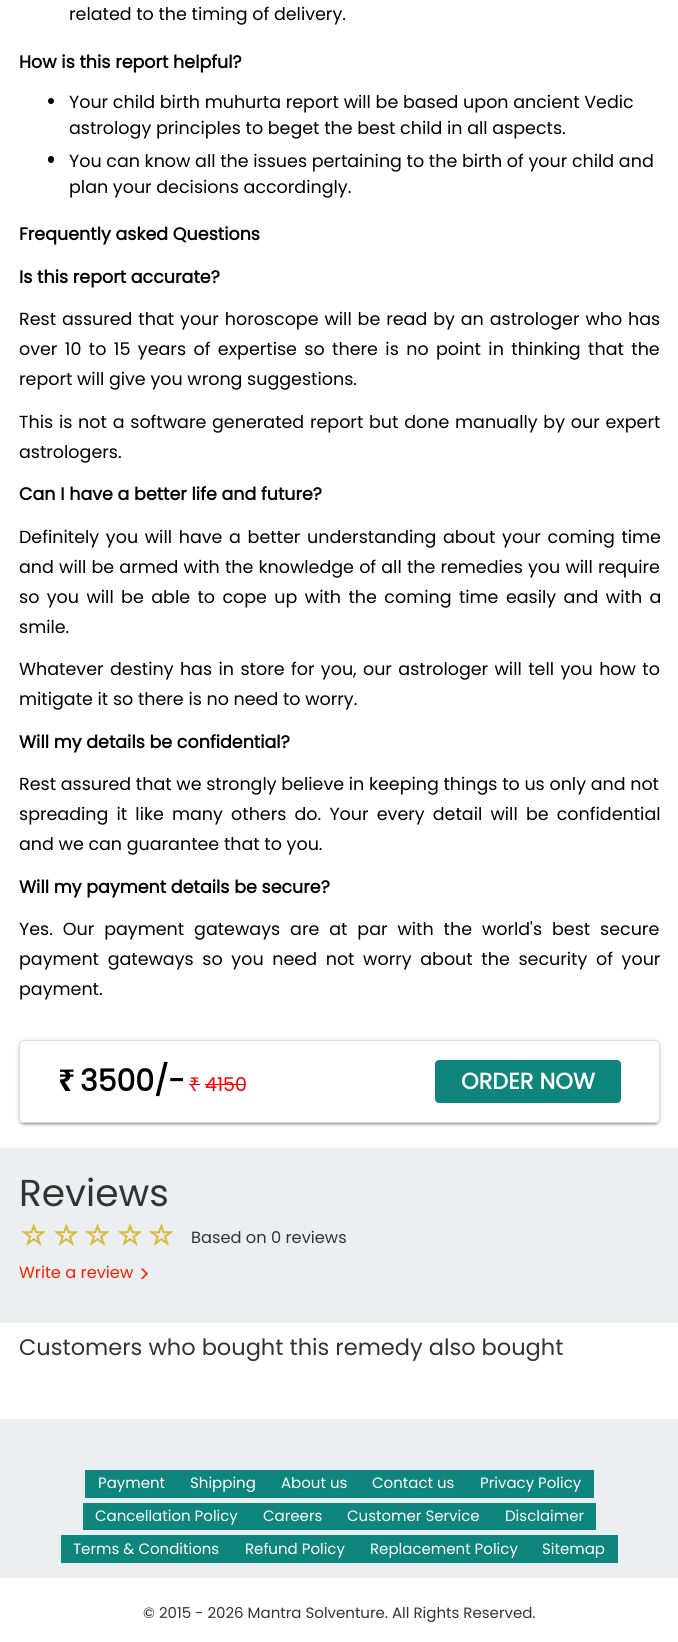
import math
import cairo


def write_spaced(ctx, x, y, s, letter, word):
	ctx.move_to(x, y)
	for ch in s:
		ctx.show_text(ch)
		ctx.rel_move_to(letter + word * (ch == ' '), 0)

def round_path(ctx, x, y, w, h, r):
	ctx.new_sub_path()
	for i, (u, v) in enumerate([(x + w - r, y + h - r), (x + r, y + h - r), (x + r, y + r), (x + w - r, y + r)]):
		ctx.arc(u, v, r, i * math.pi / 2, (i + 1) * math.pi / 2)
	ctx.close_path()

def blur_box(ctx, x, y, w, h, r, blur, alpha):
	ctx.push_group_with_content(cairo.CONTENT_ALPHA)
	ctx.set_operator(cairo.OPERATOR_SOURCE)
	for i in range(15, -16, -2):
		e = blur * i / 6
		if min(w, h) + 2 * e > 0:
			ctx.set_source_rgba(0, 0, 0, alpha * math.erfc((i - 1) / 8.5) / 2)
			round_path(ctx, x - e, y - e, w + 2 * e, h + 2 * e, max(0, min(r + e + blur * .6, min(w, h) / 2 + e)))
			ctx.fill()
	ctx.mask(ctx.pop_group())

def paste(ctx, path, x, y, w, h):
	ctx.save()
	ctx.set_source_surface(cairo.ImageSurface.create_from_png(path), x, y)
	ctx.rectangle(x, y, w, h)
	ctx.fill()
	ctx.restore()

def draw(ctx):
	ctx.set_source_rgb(0.925, 0.937, 0.945)
	ctx.paint()
	ctx.set_source_rgb(1, 1, 1)
	ctx.rectangle(0, 0, 678, 1148)
	ctx.fill()
	ctx.select_font_face('Poppins')
	ctx.set_font_size(17.5)
	ctx.set_source_rgb(0, 0, 0)
	ctx.move_to(69, 20)
	ctx.show_text('related to the timing of delivery.')
	ctx.select_font_face('Poppins', cairo.FONT_SLANT_NORMAL, cairo.FONT_WEIGHT_BOLD)
	ctx.move_to(19, 68)
	ctx.show_text('How is this report helpful?')
	ctx.new_path()
	ctx.arc(51, 101, 3, 0, 2 * math.pi)
	ctx.fill()
	ctx.select_font_face('Poppins')
	ctx.move_to(69, 108)
	ctx.show_text('Your child birth muhurta report will be based upon ancient Vedic')
	ctx.move_to(69, 134)
	ctx.show_text('astrology principles to beget the best child in all aspects.')
	round_path(ctx, 48, 156, 6, 7, 3)
	ctx.fill()
	ctx.move_to(69, 167)
	ctx.show_text('You can know all the issues pertaining to the birth of your child and')
	ctx.move_to(69, 193)
	ctx.show_text('plan your decisions accordingly.')
	ctx.select_font_face('Poppins', cairo.FONT_SLANT_NORMAL, cairo.FONT_WEIGHT_BOLD)
	ctx.move_to(19, 240)
	ctx.show_text('Frequently asked Questions')
	ctx.move_to(19, 283)
	ctx.show_text('Is this report accurate?')
	ctx.select_font_face('Poppins')
	write_spaced(ctx, 19, 325, 'Rest assured that your horoscope will be read by an astrologer who has', 0, 1.25)
	write_spaced(ctx, 19, 355, 'over 10 to 15 years of expertise so there is no point in thinking that the', 0, 2.75)
	ctx.move_to(19, 385)
	ctx.show_text('report will give you wrong suggestions.')
	write_spaced(ctx, 19, 428, 'This is not a software generated report but done manually by our expert', 0, 1.1)
	ctx.move_to(19, 458)
	ctx.show_text('astrologers.')
	ctx.select_font_face('Poppins', cairo.FONT_SLANT_NORMAL, cairo.FONT_WEIGHT_BOLD)
	ctx.move_to(19, 500)
	ctx.show_text('Can I have a better life and future?')
	ctx.select_font_face('Poppins')
	write_spaced(ctx, 19, 543, 'Definitely you will have a better understanding about your coming time', 0, 2)
	write_spaced(ctx, 19, 573, 'and will be armed with the knowledge of all the remedies you will require', 0, 0.5)
	write_spaced(ctx, 19, 603, 'so you will be able to cope up with the coming time easily and with a', 0, 2.75)
	ctx.move_to(19, 633)
	ctx.show_text('smile.')
	write_spaced(ctx, 19, 675, 'Whatever destiny has in store for you, our astrologer will tell you how to', 0, 1.75)
	ctx.move_to(19, 705)
	ctx.show_text('mitigate it so there is no need to worry.')
	ctx.select_font_face('Poppins', cairo.FONT_SLANT_NORMAL, cairo.FONT_WEIGHT_BOLD)
	ctx.move_to(19, 748)
	ctx.show_text('Will my details be confidential?')
	ctx.select_font_face('Poppins')
	ctx.move_to(19, 790)
	ctx.show_text('Rest assured that we strongly believe in keeping things to us only and not')
	write_spaced(ctx, 19, 820, 'spreading it like many others do. Your every detail will be confidential', 0, 3.5)
	ctx.move_to(19, 850)
	ctx.show_text('and we can guarantee that to you.')
	ctx.select_font_face('Poppins', cairo.FONT_SLANT_NORMAL, cairo.FONT_WEIGHT_BOLD)
	ctx.move_to(19, 893)
	ctx.show_text('Will my payment details be secure?')
	ctx.select_font_face('Poppins')
	write_spaced(ctx, 19, 935, 'Yes. Our payment gateways are at par with the world\'s best secure', 0, 5.25)
	write_spaced(ctx, 19, 965, 'payment gateways so you need not worry about the security of your', 0, 4)
	ctx.move_to(19, 995)
	ctx.show_text('payment.')
	ctx.save()
	ctx.set_fill_rule(cairo.FILL_RULE_EVEN_ODD)
	ctx.new_path()
	ctx.move_to(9, 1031)
	ctx.line_to(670, 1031)
	ctx.line_to(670, 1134)
	ctx.line_to(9, 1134)
	ctx.close_path()
	ctx.move_to(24, 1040)
	ctx.line_to(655, 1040)
	ctx.curve_to(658, 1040, 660, 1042, 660, 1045)
	ctx.line_to(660, 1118)
	ctx.curve_to(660, 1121, 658, 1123, 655, 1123)
	ctx.line_to(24, 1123)
	ctx.curve_to(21, 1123, 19, 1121, 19, 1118)
	ctx.line_to(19, 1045)
	ctx.curve_to(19, 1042, 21, 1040, 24, 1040)
	ctx.close_path()
	ctx.clip()
	ctx.set_source_rgb(0, 0, 0)
	blur_box(ctx, 19, 1041, 641, 83, 5, 3, 0.12)
	ctx.restore()
	ctx.save()
	ctx.set_fill_rule(cairo.FILL_RULE_EVEN_ODD)
	ctx.new_path()
	ctx.move_to(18, 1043)
	ctx.line_to(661, 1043)
	ctx.line_to(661, 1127)
	ctx.line_to(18, 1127)
	ctx.close_path()
	ctx.move_to(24, 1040)
	ctx.line_to(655, 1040)
	ctx.curve_to(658, 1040, 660, 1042, 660, 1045)
	ctx.line_to(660, 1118)
	ctx.curve_to(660, 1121, 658, 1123, 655, 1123)
	ctx.line_to(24, 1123)
	ctx.curve_to(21, 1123, 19, 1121, 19, 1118)
	ctx.line_to(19, 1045)
	ctx.curve_to(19, 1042, 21, 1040, 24, 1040)
	ctx.close_path()
	ctx.clip()
	ctx.set_source_rgb(0, 0, 0)
	blur_box(ctx, 21, 1046, 637, 78, 2.5, 0.5, 0.2)
	ctx.restore()
	ctx.save()
	ctx.set_fill_rule(cairo.FILL_RULE_EVEN_ODD)
	ctx.new_path()
	ctx.move_to(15, 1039)
	ctx.line_to(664, 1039)
	ctx.line_to(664, 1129)
	ctx.line_to(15, 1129)
	ctx.close_path()
	ctx.move_to(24, 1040)
	ctx.line_to(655, 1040)
	ctx.curve_to(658, 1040, 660, 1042, 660, 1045)
	ctx.line_to(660, 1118)
	ctx.curve_to(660, 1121, 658, 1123, 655, 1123)
	ctx.line_to(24, 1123)
	ctx.curve_to(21, 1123, 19, 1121, 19, 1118)
	ctx.line_to(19, 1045)
	ctx.curve_to(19, 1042, 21, 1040, 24, 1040)
	ctx.close_path()
	ctx.clip()
	ctx.set_source_rgb(0, 0, 0)
	blur_box(ctx, 19, 1043, 641, 82, 5, 1, 0.14)
	ctx.restore()
	round_path(ctx, 19.5, 1040.5, 640, 82, 4.5)
	ctx.set_source_rgb(0.867, 0.867, 0.867)
	ctx.set_line_width(1)
	ctx.stroke()
	ctx.select_font_face('Noto Sans', cairo.FONT_SLANT_NORMAL, cairo.FONT_WEIGHT_BOLD)
	ctx.set_font_size(30)
	ctx.set_source_rgb(0, 0, 0)
	ctx.move_to(58, 1091)
	ctx.show_text('₹')
	ctx.select_font_face('Poppins', cairo.FONT_SLANT_NORMAL, cairo.FONT_WEIGHT_BOLD)
	ctx.move_to(80, 1091)
	ctx.show_text('3500/-')
	ctx.select_font_face('Noto Sans')
	ctx.set_font_size(19)
	ctx.set_source_rgb(1, 0, 0)
	ctx.move_to(189, 1091)
	ctx.show_text('₹')
	ctx.rectangle(189, 1084, 11, 1)
	ctx.fill()
	ctx.select_font_face('Poppins')
	ctx.move_to(205, 1091)
	ctx.show_text('4150')
	ctx.rectangle(205, 1084, 41, 1)
	ctx.fill()
	ctx.set_source_rgb(0.059, 0.525, 0.49)
	round_path(ctx, 435, 1060, 186, 43, 4)
	ctx.fill()
	ctx.select_font_face('Poppins', cairo.FONT_SLANT_NORMAL, cairo.FONT_WEIGHT_BOLD)
	ctx.set_font_size(22.5)
	ctx.set_source_rgb(1, 1, 1)
	ctx.move_to(461, 1089)
	ctx.show_text('ORDER NOW')
	ctx.select_font_face('Poppins')
	ctx.set_font_size(37.5)
	ctx.set_source_rgb(0.2, 0.2, 0.2)
	ctx.move_to(19, 1206)
	ctx.show_text('Reviews')
	paste(ctx, 'media/1.png', 21, 1223, 25, 23)
	paste(ctx, 'media/2.png', 54, 1223, 25, 23)
	paste(ctx, 'media/3.png', 85, 1223, 25, 23)
	paste(ctx, 'media/4.png', 118, 1223, 24, 23)
	paste(ctx, 'media/2.png', 149, 1223, 25, 23)
	ctx.set_font_size(16.25)
	ctx.move_to(191, 1243)
	ctx.show_text('Based on 0 reviews')
	ctx.set_source_rgb(1, 0.118, 0)
	ctx.move_to(19, 1278)
	ctx.show_text('Write a review')
	paste(ctx, 'media/5.png', 140, 1268, 8, 11)
	ctx.set_source_rgb(1, 1, 1)
	ctx.rectangle(0, 1323, 678, 96)
	ctx.fill()
	ctx.set_font_size(22.5)
	ctx.set_source_rgb(0.2, 0.2, 0.2)
	ctx.move_to(19, 1355)
	ctx.show_text('Customers who bought this remedy also bought')
	ctx.set_source_rgb(0.059, 0.525, 0.49)
	ctx.rectangle(85, 1470, 509, 28)
	ctx.fill()
	ctx.set_font_size(15)
	ctx.set_source_rgb(1, 1, 1)
	for x, y, s in [
		(98, 1488, 'Payment'),
		(190, 1488, 'Shipping'),
		(281, 1488, 'About us'),
		(372, 1488, 'Contact us'),
		(480, 1488, 'Privacy Policy'),
	]:
		ctx.move_to(x, y)
		ctx.show_text(s)
	ctx.set_source_rgb(0.059, 0.525, 0.49)
	ctx.rectangle(83, 1503, 513, 27)
	ctx.fill()
	ctx.set_source_rgb(1, 1, 1)
	for x, y, s in [
		(95, 1521, 'Cancellation Policy'),
		(263, 1521, 'Careers'),
		(347, 1521, 'Customer Service'),
		(505, 1521, 'Disclaimer'),
	]:
		ctx.move_to(x, y)
		ctx.show_text(s)
	ctx.set_source_rgb(0.059, 0.525, 0.49)
	ctx.rectangle(61, 1535, 557, 28)
	ctx.fill()
	ctx.set_source_rgb(1, 1, 1)
	for x, y, s in [
		(73, 1554, 'Terms & Conditions'),
		(245, 1554, 'Refund Policy'),
		(370, 1554, 'Replacement Policy'),
		(542, 1554, 'Sitemap'),
	]:
		ctx.move_to(x, y)
		ctx.show_text(s)
	ctx.rectangle(0, 1578, 678, 64)
	ctx.fill()
	ctx.set_source_rgb(0.2, 0.2, 0.2)
	ctx.move_to(143, 1618)
	ctx.show_text('© 2015 - 2026 Mantra Solventure. All Rights Reserved.')


surface = cairo.ImageSurface(cairo.FORMAT_RGB24, 678, 1642)
ctx = cairo.Context(surface)
options = cairo.FontOptions()
options.set_hint_metrics(cairo.HINT_METRICS_OFF)
options.set_hint_style(cairo.HINT_STYLE_NONE)
ctx.set_font_options(options)
ctx.set_miter_limit(4)
draw(ctx)
surface.write_to_png('image.png')
